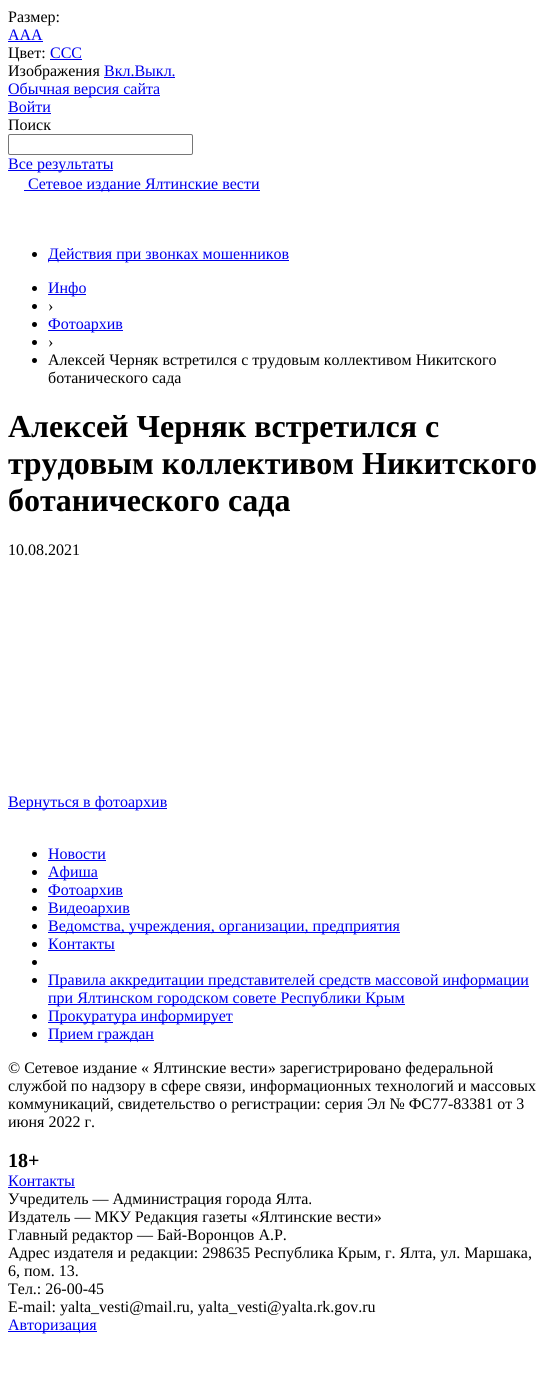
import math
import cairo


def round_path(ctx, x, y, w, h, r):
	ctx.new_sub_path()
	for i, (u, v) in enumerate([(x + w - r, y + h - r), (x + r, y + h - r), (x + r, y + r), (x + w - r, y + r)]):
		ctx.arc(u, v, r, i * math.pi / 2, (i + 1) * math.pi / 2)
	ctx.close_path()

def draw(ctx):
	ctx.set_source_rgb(1, 1, 1)
	ctx.paint()
	ctx.select_font_face('Liberation Serif')
	ctx.set_font_size(16)
	ctx.set_source_rgb(0, 0, 0)
	ctx.move_to(8, 22)
	ctx.show_text('Размер:')
	ctx.set_source_rgb(0, 0, 0.933)
	ctx.move_to(8, 40)
	ctx.show_text('AAA')
	ctx.rectangle(8, 41, 35, 1)
	ctx.fill()
	ctx.set_source_rgb(0, 0, 0)
	ctx.move_to(8, 58)
	ctx.show_text('Цвет:')
	ctx.set_source_rgb(0, 0, 0.933)
	ctx.move_to(50, 58)
	ctx.show_text('CCC')
	ctx.rectangle(50, 59, 32, 1)
	ctx.fill()
	ctx.set_source_rgb(0, 0, 0)
	ctx.move_to(8, 76)
	ctx.show_text('Изображения')
	ctx.set_source_rgb(0, 0, 0.933)
	ctx.move_to(104, 76)
	ctx.show_text('Вкл.Выкл.')
	ctx.rectangle(104, 77, 71, 1)
	ctx.fill()
	ctx.rectangle(8, 95, 152, 1)
	ctx.fill()
	ctx.move_to(8, 94)
	ctx.show_text('Обычная версия сайта')
	ctx.move_to(8, 112)
	ctx.show_text('Войти')
	ctx.rectangle(8, 113, 43, 1)
	ctx.fill()
	ctx.set_source_rgb(0, 0, 0)
	ctx.move_to(8, 130)
	ctx.show_text('Поиск')
	round_path(ctx, 8.5, 134.5, 184, 20, 1.5)
	ctx.set_source_rgb(0.463, 0.463, 0.463)
	ctx.set_line_width(1)
	ctx.stroke()
	ctx.set_source_rgb(0, 0, 0.933)
	ctx.rectangle(8, 170, 105, 1)
	ctx.fill()
	ctx.move_to(8, 169)
	ctx.show_text('Все результаты')
	ctx.rectangle(24, 190, 236, 1)
	ctx.fill()
	ctx.move_to(28, 189)
	ctx.show_text('Сетевое издание Ялтинские вести')
	ctx.set_source_rgb(0, 0, 0)
	ctx.new_path()
	ctx.arc(34.5, 254.5, 2.5, 0, 2 * math.pi)
	ctx.fill()
	ctx.set_source_rgb(0, 0, 0.933)
	ctx.rectangle(48, 260, 241, 1)
	ctx.fill()
	ctx.move_to(48, 259)
	ctx.show_text('Действия при звонках мошенников')
	ctx.set_source_rgb(0, 0, 0)
	ctx.new_path()
	ctx.arc(34.5, 288.5, 2.5, 0, 2 * math.pi)
	ctx.fill()
	ctx.set_source_rgb(0, 0, 0.933)
	ctx.rectangle(48, 294, 38, 1)
	ctx.fill()
	ctx.move_to(48, 293)
	ctx.show_text('Инфо')
	ctx.set_source_rgb(0, 0, 0)
	ctx.new_path()
	ctx.arc(34.5, 306.5, 2.5, 0, 2 * math.pi)
	ctx.fill()
	ctx.move_to(48, 311)
	ctx.show_text('›')
	ctx.new_path()
	ctx.arc(34.5, 324.5, 2.5, 0, 2 * math.pi)
	ctx.fill()
	ctx.set_source_rgb(0, 0, 0.933)
	ctx.rectangle(48, 330, 75, 1)
	ctx.fill()
	ctx.move_to(48, 329)
	ctx.show_text('Фотоархив')
	ctx.set_source_rgb(0, 0, 0)
	ctx.new_path()
	ctx.arc(34.5, 342.5, 2.5, 0, 2 * math.pi)
	ctx.fill()
	ctx.move_to(48, 347)
	ctx.show_text('›')
	ctx.new_path()
	ctx.arc(34.5, 360.5, 2.5, 0, 2 * math.pi)
	ctx.fill()
	ctx.move_to(48, 365)
	ctx.show_text('Алексей Черняк встретился с трудовым коллективом Никитского')
	ctx.move_to(48, 383)
	ctx.show_text('ботанического сада')
	ctx.select_font_face('Liberation Serif', cairo.FONT_SLANT_NORMAL, cairo.FONT_WEIGHT_BOLD)
	ctx.set_font_size(32)
	for x, y, s in [
		(8, 437, 'Алексей Черняк встретился с'),
		(8, 474, 'трудовым коллективом Никитского'),
		(8, 511, 'ботанического сада'),
	]:
		ctx.move_to(x, y)
		ctx.show_text(s)
	ctx.select_font_face('Liberation Serif')
	ctx.set_font_size(16)
	ctx.move_to(8, 555)
	ctx.show_text('10.08.2021')
	ctx.set_source_rgb(0, 0, 0.933)
	ctx.rectangle(8, 808, 159, 1)
	ctx.fill()
	ctx.move_to(8, 807)
	ctx.show_text('Вернуться в фотоархив')
	ctx.set_source_rgb(0, 0, 0)
	ctx.new_path()
	ctx.arc(34.5, 854.5, 2.5, 0, 2 * math.pi)
	ctx.fill()
	ctx.set_source_rgb(0, 0, 0.933)
	ctx.move_to(48, 859)
	ctx.show_text('Новости')
	ctx.rectangle(48, 860, 58, 1)
	ctx.fill()
	ctx.set_source_rgb(0, 0, 0)
	ctx.arc(34.5, 872.5, 2.5, 0, 2 * math.pi)
	ctx.fill()
	ctx.set_source_rgb(0, 0, 0.933)
	ctx.rectangle(48, 878, 50, 1)
	ctx.fill()
	ctx.move_to(48, 877)
	ctx.show_text('Афиша')
	ctx.set_source_rgb(0, 0, 0)
	ctx.new_path()
	ctx.arc(34.5, 890.5, 2.5, 0, 2 * math.pi)
	ctx.fill()
	ctx.set_source_rgb(0, 0, 0.933)
	ctx.rectangle(48, 896, 75, 1)
	ctx.fill()
	ctx.move_to(48, 895)
	ctx.show_text('Фотоархив')
	ctx.set_source_rgb(0, 0, 0)
	ctx.new_path()
	ctx.arc(34.5, 908.5, 2.5, 0, 2 * math.pi)
	ctx.fill()
	ctx.set_source_rgb(0, 0, 0.933)
	ctx.rectangle(48, 914, 82, 1)
	ctx.fill()
	ctx.move_to(48, 913)
	ctx.show_text('Видеоархив')
	ctx.set_source_rgb(0, 0, 0)
	ctx.new_path()
	ctx.arc(34.5, 926.5, 2.5, 0, 2 * math.pi)
	ctx.fill()
	ctx.set_source_rgb(0, 0, 0.933)
	ctx.rectangle(48, 932, 352, 1)
	ctx.fill()
	ctx.move_to(48, 931)
	ctx.show_text('Ведомства, учреждения, организации, предприятия')
	ctx.set_source_rgb(0, 0, 0)
	ctx.new_path()
	ctx.arc(34.5, 944.5, 2.5, 0, 2 * math.pi)
	ctx.fill()
	ctx.set_source_rgb(0, 0, 0.933)
	ctx.move_to(48, 949)
	ctx.show_text('Контакты')
	ctx.rectangle(48, 950, 67, 1)
	ctx.fill()
	ctx.set_source_rgb(0, 0, 0)
	ctx.arc(34.5, 962.5, 2.5, 0, 2 * math.pi)
	ctx.fill()
	ctx.arc(34.5, 980.5, 2.5, 0, 2 * math.pi)
	ctx.fill()
	ctx.set_source_rgb(0, 0, 0.933)
	ctx.rectangle(48, 986, 481, 1)
	ctx.fill()
	ctx.move_to(48, 985)
	ctx.show_text('Правила аккредитации представителей средств массовой информации')
	ctx.rectangle(48, 1004, 357, 1)
	ctx.fill()
	ctx.move_to(48, 1003)
	ctx.show_text('при Ялтинском городском совете Республики Крым')
	ctx.set_source_rgb(0, 0, 0)
	ctx.new_path()
	ctx.arc(34.5, 1016.5, 2.5, 0, 2 * math.pi)
	ctx.fill()
	ctx.set_source_rgb(0, 0, 0.933)
	ctx.rectangle(48, 1022, 185, 1)
	ctx.fill()
	ctx.move_to(48, 1021)
	ctx.show_text('Прокуратура информирует')
	ctx.set_source_rgb(0, 0, 0)
	ctx.new_path()
	ctx.arc(34.5, 1034.5, 2.5, 0, 2 * math.pi)
	ctx.fill()
	ctx.set_source_rgb(0, 0, 0.933)
	ctx.rectangle(48, 1040, 106, 1)
	ctx.fill()
	ctx.move_to(48, 1039)
	ctx.show_text('Прием граждан')
	ctx.set_source_rgb(0, 0, 0)
	for x, y, s in [
		(8, 1073, '© Сетевое издание « Ялтинские вести» зарегистрировано федеральной'),
		(8, 1091, 'службой по надзору в сфере связи, информационных технологий и массовых'),
		(8, 1109, 'коммуникаций, свидетельство о регистрации: серия Эл № ФС77-83381 от 3'),
		(8, 1127, 'июня 2022 г.'),
	]:
		ctx.move_to(x, y)
		ctx.show_text(s)
	ctx.select_font_face('Liberation Serif', cairo.FONT_SLANT_NORMAL, cairo.FONT_WEIGHT_BOLD)
	ctx.set_font_size(20)
	ctx.move_to(8, 1167)
	ctx.show_text('18+')
	ctx.select_font_face('Liberation Serif')
	ctx.set_font_size(16)
	ctx.set_source_rgb(0, 0, 0.933)
	ctx.move_to(8, 1186)
	ctx.show_text('Контакты')
	ctx.rectangle(8, 1187, 67, 1)
	ctx.fill()
	ctx.set_source_rgb(0, 0, 0)
	for x, y, s in [
		(8, 1204, 'Учредитель — Администрация города Ялта.'),
		(8, 1222, 'Издатель — МКУ Редакция газеты «Ялтинские вести»'),
		(8, 1240, 'Главный редактор — Бай-Воронцов А.Р.'),
		(8, 1258, 'Адрес издателя и редакции: 298635 Республика Крым, г. Ялта, ул. Маршака,'),
		(8, 1276, '6, пом. 13.'),
		(8, 1294, 'Тел.: 26-00-45'),
		(8, 1312, 'E-mail: yalta_vesti@mail.ru, yalta_vesti@yalta.rk.gov.ru'),
	]:
		ctx.move_to(x, y)
		ctx.show_text(s)
	ctx.set_source_rgb(0, 0, 0.933)
	ctx.rectangle(8, 1331, 89, 1)
	ctx.fill()
	ctx.move_to(8, 1330)
	ctx.show_text('Авторизация')


surface = cairo.ImageSurface(cairo.FORMAT_RGB24, 548, 1377)
ctx = cairo.Context(surface)
options = cairo.FontOptions()
options.set_hint_metrics(cairo.HINT_METRICS_OFF)
options.set_hint_style(cairo.HINT_STYLE_NONE)
ctx.set_font_options(options)
ctx.set_miter_limit(4)
draw(ctx)
surface.write_to_png('image.png')
